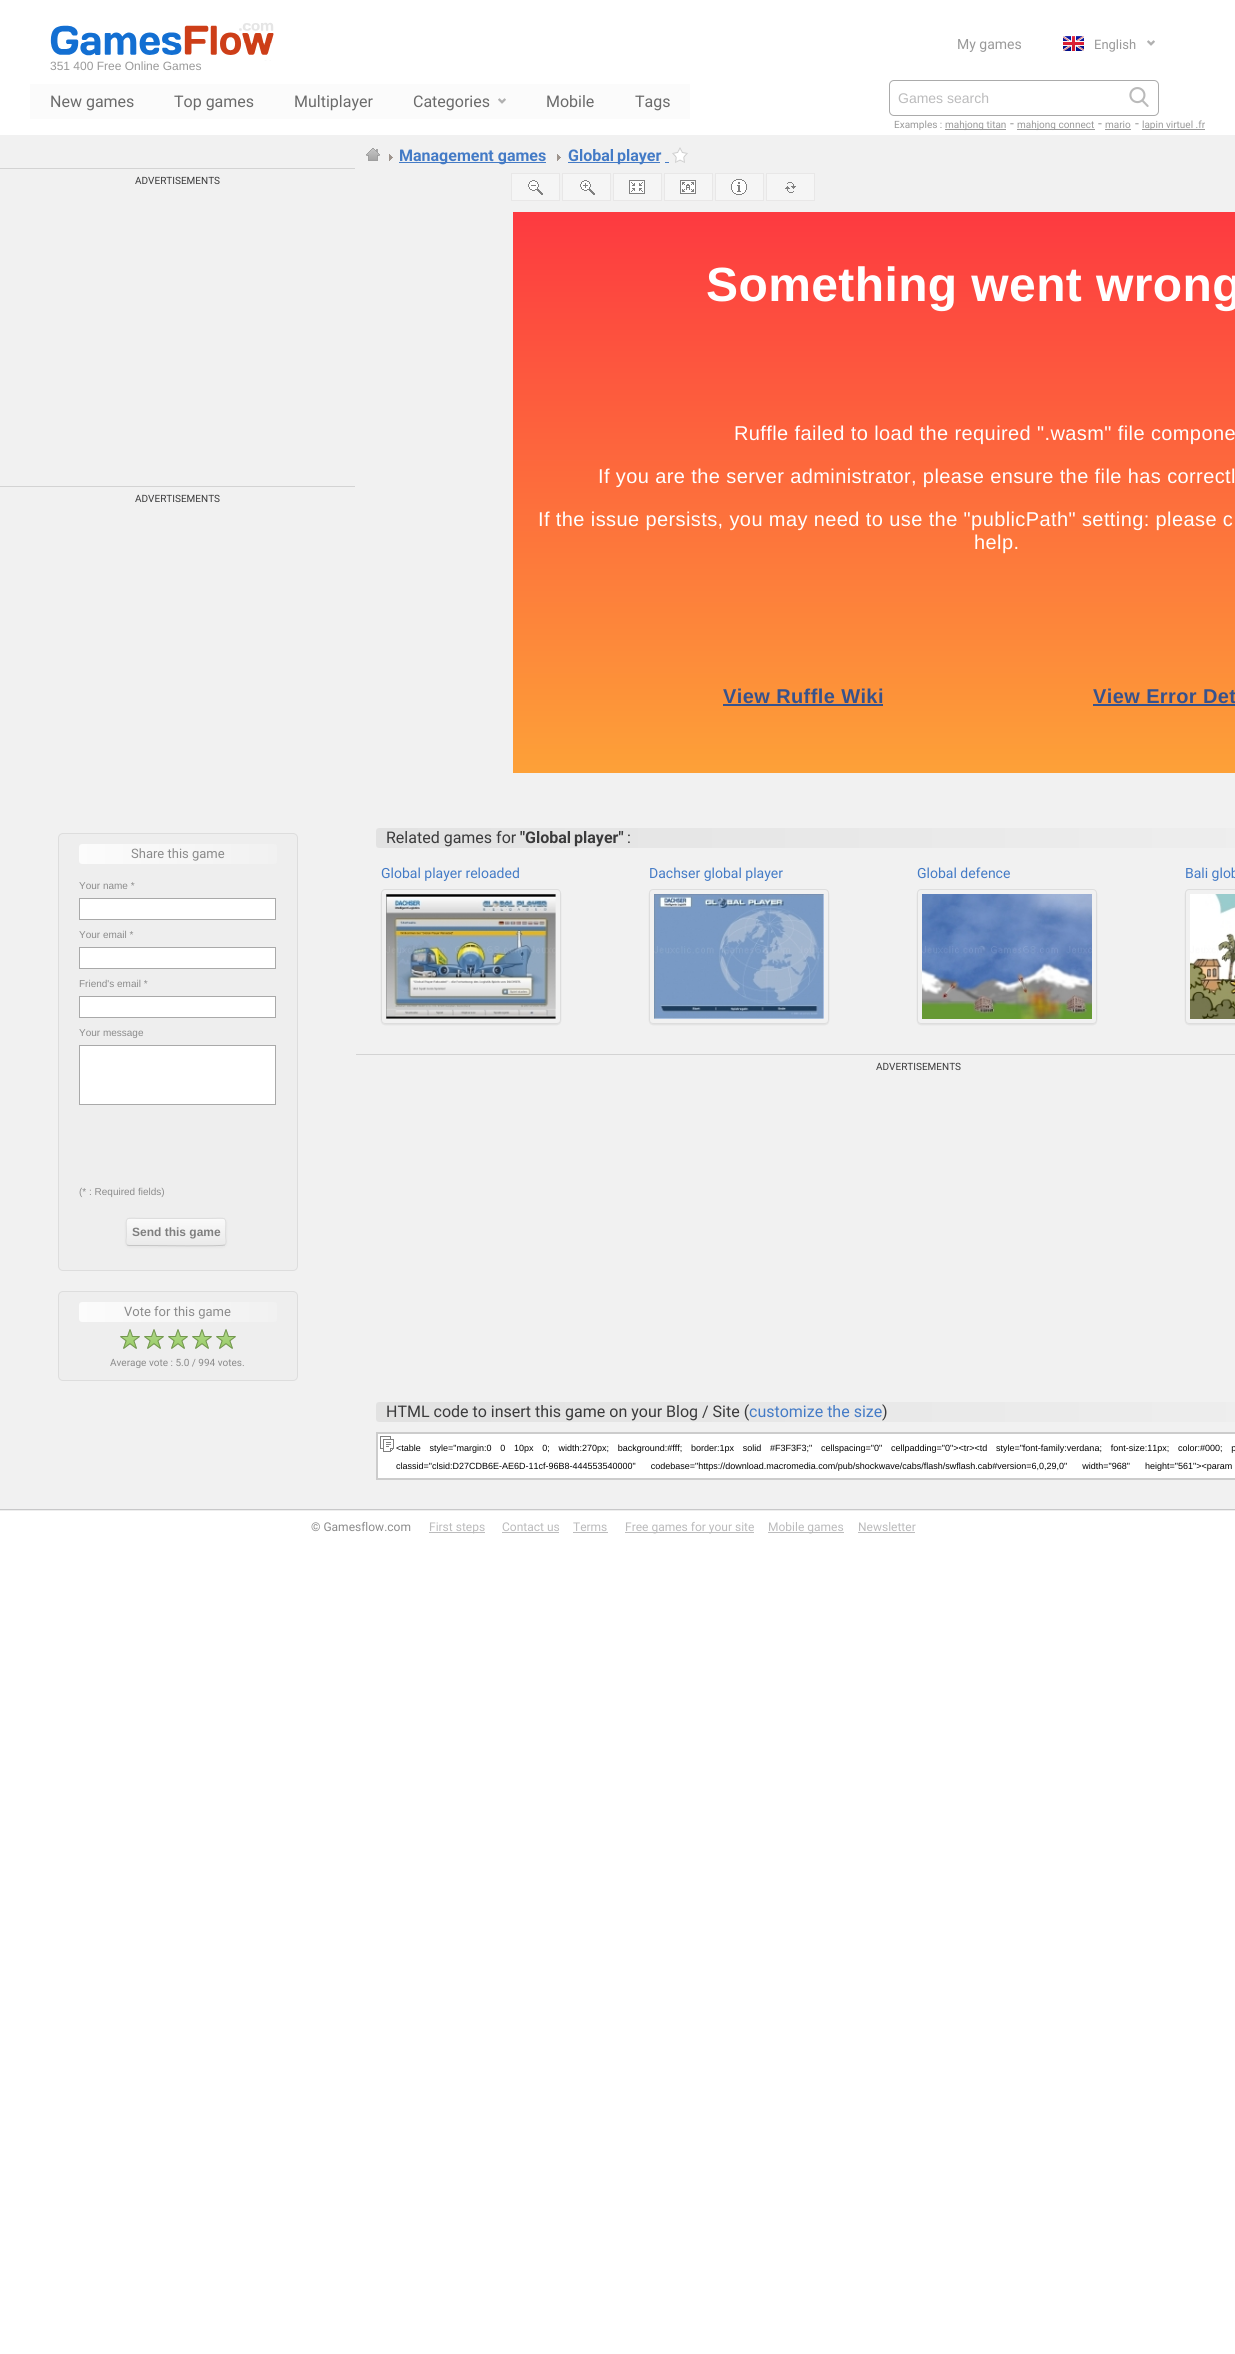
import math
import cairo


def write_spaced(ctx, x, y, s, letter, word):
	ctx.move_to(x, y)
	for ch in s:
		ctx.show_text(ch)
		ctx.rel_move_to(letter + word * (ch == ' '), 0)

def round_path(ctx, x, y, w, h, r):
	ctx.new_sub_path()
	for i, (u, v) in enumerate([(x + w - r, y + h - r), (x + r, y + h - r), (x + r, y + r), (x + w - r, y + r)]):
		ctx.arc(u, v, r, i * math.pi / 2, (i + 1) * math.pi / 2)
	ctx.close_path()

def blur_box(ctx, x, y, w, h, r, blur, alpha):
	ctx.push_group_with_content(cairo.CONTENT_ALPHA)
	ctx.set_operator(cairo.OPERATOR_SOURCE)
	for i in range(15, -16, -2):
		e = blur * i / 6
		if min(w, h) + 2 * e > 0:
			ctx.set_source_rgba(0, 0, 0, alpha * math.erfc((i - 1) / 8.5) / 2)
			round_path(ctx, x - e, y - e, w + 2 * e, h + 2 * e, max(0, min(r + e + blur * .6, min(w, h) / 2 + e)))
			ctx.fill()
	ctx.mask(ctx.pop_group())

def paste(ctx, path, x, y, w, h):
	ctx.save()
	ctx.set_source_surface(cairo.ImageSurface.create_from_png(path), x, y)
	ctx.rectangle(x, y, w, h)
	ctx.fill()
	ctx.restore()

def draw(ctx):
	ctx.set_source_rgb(1, 1, 1)
	ctx.paint()
	ctx.select_font_face('Roboto')
	ctx.set_font_size(14)
	ctx.set_source_rgb(0.6, 0.6, 0.6)
	ctx.move_to(957, 49)
	ctx.show_text('My games')
	paste(ctx, 'media/1.png', 1063, 36, 21, 15)
	ctx.set_font_size(13)
	ctx.move_to(1094, 49)
	ctx.show_text('English')
	paste(ctx, 'media/2.png', 1147, 40, 8, 6)
	paste(ctx, 'media/3.png', 50, 22, 224, 39)
	ctx.select_font_face('Liberation Sans')
	ctx.set_font_size(12)
	ctx.move_to(50, 70)
	ctx.show_text('351 400 Free Online Games')
	ctx.set_source_rgb(0.984, 0.984, 0.984)
	ctx.rectangle(30, 84, 660, 35)
	ctx.fill()
	ctx.select_font_face('Roboto')
	ctx.set_font_size(16)
	ctx.set_source_rgb(0.42, 0.42, 0.42)
	for x, y, s in [
		(50, 107, 'New games'),
		(174, 107, 'Top games'),
		(294, 107, 'Multiplayer'),
		(413, 107, 'Categories'),
	]:
		ctx.move_to(x, y)
		ctx.show_text(s)
	paste(ctx, 'media/4.png', 498, 98, 8, 6)
	ctx.move_to(546, 107)
	ctx.show_text('Mobile')
	ctx.move_to(635, 107)
	ctx.show_text('Tags')
	round_path(ctx, 889.5, 80.5, 269, 35, 4.5)
	ctx.set_source_rgb(0.671, 0.671, 0.671)
	ctx.set_line_width(1)
	ctx.stroke()
	ctx.select_font_face('Liberation Sans')
	ctx.set_font_size(14)
	ctx.set_source_rgb(0.733, 0.733, 0.737)
	ctx.move_to(898, 103)
	ctx.show_text('Games search')
	paste(ctx, 'media/5.png', 1129, 87, 20, 20)
	ctx.select_font_face('Roboto')
	ctx.set_font_size(10)
	ctx.set_source_rgb(0.6, 0.6, 0.6)
	ctx.move_to(894, 128)
	ctx.show_text('Examples :')
	ctx.rectangle(945, 129, 61, 1)
	ctx.fill()
	ctx.move_to(945, 128)
	ctx.show_text('mahjong titan')
	ctx.set_font_size(14)
	ctx.move_to(1010, 128)
	ctx.show_text('-')
	ctx.rectangle(1017, 129, 78, 1)
	ctx.fill()
	ctx.set_font_size(10)
	ctx.move_to(1017, 128)
	ctx.show_text('mahjong connect')
	ctx.set_font_size(14)
	ctx.move_to(1098, 128)
	ctx.show_text('-')
	ctx.set_font_size(10)
	ctx.move_to(1105, 128)
	ctx.show_text('mario')
	ctx.rectangle(1105, 129, 26, 1)
	ctx.fill()
	ctx.set_font_size(14)
	ctx.move_to(1135, 128)
	ctx.show_text('-')
	ctx.rectangle(1142, 129, 63, 1)
	ctx.fill()
	ctx.set_font_size(10)
	ctx.move_to(1142, 128)
	ctx.show_text('lapin virtuel .fr')
	ctx.set_source_rgb(0.945, 0.945, 0.945)
	ctx.rectangle(0, 135, 1235, 1374)
	ctx.fill()
	paste(ctx, 'media/6.png', 366, 148, 14, 13)
	paste(ctx, 'media/7.png', 389, 154, 4, 7)
	ctx.set_source_rgb(0.267, 0.482, 0.776)
	ctx.rectangle(399, 162, 147, 1)
	ctx.fill()
	ctx.select_font_face('Roboto', cairo.FONT_SLANT_NORMAL, cairo.FONT_WEIGHT_BOLD)
	ctx.set_font_size(16)
	ctx.move_to(399, 161)
	ctx.show_text('Management games')
	paste(ctx, 'media/7.png', 557, 154, 4, 7)
	ctx.rectangle(568, 162, 92, 1)
	ctx.fill()
	write_spaced(ctx, 568, 161, 'Global player', 0, -1)
	ctx.rectangle(665, 162, 4, 1)
	ctx.fill()
	paste(ctx, 'media/8.png', 672, 147, 16, 16)
	ctx.set_source_rgb(0.827, 0.827, 0.827)
	ctx.rectangle(0, 168, 355, 1)
	ctx.fill()
	ctx.select_font_face('Roboto')
	ctx.set_font_size(10)
	ctx.set_source_rgb(0.227, 0.227, 0.231)
	ctx.move_to(135, 184)
	ctx.show_text('ADVERTISEMENTS')
	ctx.set_source_rgb(0.827, 0.827, 0.827)
	ctx.rectangle(0, 486, 355, 1)
	ctx.fill()
	ctx.set_source_rgb(0.227, 0.227, 0.231)
	ctx.move_to(135, 502)
	ctx.show_text('ADVERTISEMENTS')
	ctx.set_source_rgb(0.933, 0.933, 0.933)
	round_path(ctx, 58.5, 833.5, 239, 437, 4.5)
	ctx.fill_preserve()
	ctx.set_source_rgb(0.867, 0.867, 0.867)
	ctx.stroke()
	gradient = cairo.LinearGradient(79, 854, 277, 854)
	gradient.add_color_stop_rgba(0, 0.988, 0.988, 0.988, 1)
	gradient.add_color_stop_rgba(1, 0.945, 0.945, 0.945, 1)
	ctx.set_source(gradient)
	round_path(ctx, 79, 844, 198, 20, 3)
	ctx.fill()
	ctx.set_font_size(13)
	ctx.set_source_rgb(0.545, 0.545, 0.545)
	ctx.move_to(131, 858)
	ctx.show_text('Share this game')
	ctx.select_font_face('Liberation Sans')
	ctx.set_font_size(10)
	ctx.move_to(79, 889)
	ctx.show_text('Your name *')
	ctx.set_source_rgb(1, 1, 1)
	ctx.rectangle(79.5, 898.5, 196, 21)
	ctx.fill_preserve()
	ctx.set_source_rgb(0.663, 0.663, 0.663)
	ctx.stroke()
	ctx.set_source_rgb(0.545, 0.545, 0.545)
	ctx.move_to(79, 938)
	ctx.show_text('Your email *')
	ctx.set_source_rgb(1, 1, 1)
	ctx.rectangle(79.5, 947.5, 196, 21)
	ctx.fill_preserve()
	ctx.set_source_rgb(0.663, 0.663, 0.663)
	ctx.stroke()
	ctx.set_source_rgb(0.545, 0.545, 0.545)
	ctx.move_to(79, 987)
	ctx.show_text('Friend\'s email *')
	ctx.set_source_rgb(1, 1, 1)
	ctx.rectangle(79.5, 996.5, 196, 21)
	ctx.fill_preserve()
	ctx.set_source_rgb(0.663, 0.663, 0.663)
	ctx.stroke()
	ctx.set_source_rgb(0.545, 0.545, 0.545)
	ctx.move_to(79, 1036)
	ctx.show_text('Your message')
	ctx.set_source_rgb(1, 1, 1)
	ctx.rectangle(79.5, 1045.5, 196, 59)
	ctx.fill_preserve()
	ctx.set_source_rgb(0.663, 0.663, 0.663)
	ctx.stroke()
	ctx.set_source_rgb(0.545, 0.545, 0.545)
	ctx.move_to(79, 1195)
	ctx.show_text('(* : Required fields)')
	ctx.set_source_rgb(0, 0, 0)
	blur_box(ctx, 126, 1219, 100, 28, 3, 1.5, 0.05)
	ctx.set_source_rgb(0.918, 0.918, 0.918)
	round_path(ctx, 126, 1218, 100, 28, 3)
	ctx.fill()
	ctx.save()
	round_path(ctx, 126, 1218, 100, 28, 3)
	ctx.clip()
	gradient = cairo.LinearGradient(176, 1219, 176, 1245)
	gradient.add_color_stop_rgba(0, 0.98, 0.98, 0.98, 1)
	gradient.add_color_stop_rgba(1, 0.918, 0.918, 0.918, 1)
	ctx.set_source(gradient)
	ctx.rectangle(126, 1219, 100, 26)
	ctx.fill()
	ctx.restore()
	ctx.new_path()
	ctx.move_to(225, 1245)
	ctx.line_to(224.5, 1245)
	ctx.curve_to(222.5, 1246.5, 153, 1245.5, 144.5, 1245.5)
	ctx.line_to(129, 1245.5)
	ctx.line_to(127, 1245)
	ctx.set_source_rgb(0.773, 0.773, 0.773)
	ctx.stroke()
	ctx.new_path()
	ctx.move_to(127, 1245)
	ctx.curve_to(125, 1242.5, 126.5, 1238, 126.5, 1235.5)
	ctx.curve_to(126.5, 1214.5, 122.5, 1218.5, 144.5, 1218.5)
	ctx.line_to(207.5, 1218.5)
	ctx.curve_to(229.5, 1218.5, 225.5, 1214.5, 225.5, 1235.5)
	ctx.curve_to(225.5, 1238, 227, 1242.5, 225, 1245)
	ctx.set_source_rgb(0.867, 0.867, 0.867)
	ctx.stroke()
	ctx.select_font_face('Liberation Sans', cairo.FONT_SLANT_NORMAL, cairo.FONT_WEIGHT_BOLD)
	ctx.set_font_size(12)
	ctx.set_source_rgb(0.498, 0.498, 0.498)
	ctx.move_to(132, 1236)
	ctx.show_text('Send this game')
	ctx.set_source_rgb(0.933, 0.933, 0.933)
	round_path(ctx, 58.5, 1291.5, 239, 89, 4.5)
	ctx.fill_preserve()
	ctx.set_source_rgb(0.867, 0.867, 0.867)
	ctx.stroke()
	gradient = cairo.LinearGradient(79, 1312, 277, 1312)
	gradient.add_color_stop_rgba(0, 0.988, 0.988, 0.988, 1)
	gradient.add_color_stop_rgba(1, 0.945, 0.945, 0.945, 1)
	ctx.set_source(gradient)
	round_path(ctx, 79, 1302, 198, 20, 3)
	ctx.fill()
	ctx.select_font_face('Roboto')
	ctx.set_font_size(13)
	ctx.set_source_rgb(0.545, 0.545, 0.545)
	ctx.move_to(124, 1316)
	ctx.show_text('Vote for this game')
	paste(ctx, 'media/9.png', 120, 1329, 116, 20)
	paste(ctx, 'media/10.png', 120, 1329, 116, 20)
	ctx.set_font_size(10)
	ctx.move_to(110, 1366)
	ctx.show_text('Average vote : 5.0 / 994 votes.')
	paste(ctx, 'media/11.png', 511, 173, 49, 28)
	paste(ctx, 'media/12.png', 562, 173, 49, 28)
	paste(ctx, 'media/13.png', 613, 173, 49, 28)
	paste(ctx, 'media/14.png', 664, 173, 49, 28)
	paste(ctx, 'media/15.png', 715, 173, 49, 28)
	paste(ctx, 'media/16.png', 766, 173, 49, 28)
	gradient = cairo.LinearGradient(997, 212, 997, 773)
	gradient.add_color_stop_rgba(0, 0.992, 0.227, 0.251, 1)
	gradient.add_color_stop_rgba(1, 0.992, 0.631, 0.22, 1)
	ctx.set_source(gradient)
	ctx.rectangle(513, 212, 722, 561)
	ctx.fill()
	ctx.select_font_face('Liberation Sans', cairo.FONT_SLANT_NORMAL, cairo.FONT_WEIGHT_BOLD)
	ctx.set_font_size(48)
	ctx.set_source_rgb(1, 1, 1)
	write_spaced(ctx, 706, 301, 'Something went wrong', 0.4, 0)
	ctx.select_font_face('Liberation Sans')
	ctx.set_font_size(20)
	for x, y, s in [
		(734, 440, 'Ruffle failed to load the required ".wasm" file compone'),
		(598, 483, 'If you are the server administrator, please ensure the file has correctl'),
		(538, 526, 'If the issue persists, you may need to use the "publicPath" setting: please c'),
		(974, 549, 'help.'),
	]:
		write_spaced(ctx, x, y, s, 0.4, 0)
	ctx.select_font_face('Liberation Sans', cairo.FONT_SLANT_NORMAL, cairo.FONT_WEIGHT_BOLD)
	ctx.set_source_rgb(0.216, 0.322, 0.549)
	write_spaced(ctx, 723, 703, 'View Ruffle Wiki', 0.4, 0)
	ctx.rectangle(723, 704, 160, 2)
	ctx.fill()
	write_spaced(ctx, 1093, 703, 'View Error Det', 0.4, 0)
	ctx.rectangle(1093, 704, 142, 2)
	ctx.fill()
	gradient = cairo.LinearGradient(376, 838, 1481, 838)
	gradient.add_color_stop_rgba(0, 0.886, 0.886, 0.886, 1)
	gradient.add_color_stop_rgba(1, 0.945, 0.945, 0.945, 1)
	ctx.set_source(gradient)
	round_path(ctx, 376, 828, 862, 20, 3)
	ctx.fill()
	ctx.select_font_face('Roboto')
	ctx.set_font_size(16)
	ctx.set_source_rgb(0.227, 0.227, 0.231)
	ctx.move_to(386, 843)
	ctx.show_text('Related games for')
	ctx.select_font_face('Roboto', cairo.FONT_SLANT_NORMAL, cairo.FONT_WEIGHT_BOLD)
	write_spaced(ctx, 520, 843, '"Global player"', 0, -1)
	ctx.select_font_face('Roboto')
	ctx.move_to(627, 843)
	ctx.show_text(':')
	ctx.set_font_size(14)
	ctx.set_source_rgb(0.267, 0.482, 0.776)
	ctx.move_to(381, 878)
	ctx.show_text('Global player reloaded')
	ctx.save()
	ctx.set_fill_rule(cairo.FILL_RULE_EVEN_ODD)
	ctx.new_path()
	ctx.move_to(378, 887)
	ctx.line_to(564, 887)
	ctx.line_to(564, 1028)
	ctx.line_to(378, 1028)
	ctx.close_path()
	ctx.move_to(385, 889)
	ctx.line_to(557, 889)
	ctx.curve_to(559, 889, 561, 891, 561, 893)
	ctx.line_to(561, 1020)
	ctx.curve_to(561, 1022, 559, 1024, 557, 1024)
	ctx.line_to(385, 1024)
	ctx.curve_to(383, 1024, 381, 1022, 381, 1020)
	ctx.line_to(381, 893)
	ctx.curve_to(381, 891, 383, 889, 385, 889)
	ctx.close_path()
	ctx.clip()
	ctx.set_source_rgb(0, 0, 0)
	blur_box(ctx, 381, 890, 180, 135, 4, 0.5, 0.07)
	ctx.restore()
	round_path(ctx, 381.5, 889.5, 179, 134, 3.5)
	ctx.set_source_rgb(0.867, 0.867, 0.867)
	ctx.stroke()
	paste(ctx, 'media/17.png', 386, 894, 170, 125)
	ctx.set_source_rgb(0.267, 0.482, 0.776)
	ctx.move_to(649, 878)
	ctx.show_text('Dachser global player')
	ctx.save()
	ctx.set_fill_rule(cairo.FILL_RULE_EVEN_ODD)
	ctx.new_path()
	ctx.move_to(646, 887)
	ctx.line_to(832, 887)
	ctx.line_to(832, 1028)
	ctx.line_to(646, 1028)
	ctx.close_path()
	ctx.move_to(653, 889)
	ctx.line_to(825, 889)
	ctx.curve_to(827, 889, 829, 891, 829, 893)
	ctx.line_to(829, 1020)
	ctx.curve_to(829, 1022, 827, 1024, 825, 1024)
	ctx.line_to(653, 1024)
	ctx.curve_to(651, 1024, 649, 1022, 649, 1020)
	ctx.line_to(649, 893)
	ctx.curve_to(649, 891, 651, 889, 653, 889)
	ctx.close_path()
	ctx.clip()
	ctx.set_source_rgb(0, 0, 0)
	blur_box(ctx, 649, 890, 180, 135, 4, 0.5, 0.07)
	ctx.restore()
	round_path(ctx, 649.5, 889.5, 179, 134, 3.5)
	ctx.set_source_rgb(0.867, 0.867, 0.867)
	ctx.stroke()
	paste(ctx, 'media/18.png', 654, 894, 170, 125)
	ctx.set_source_rgb(0.267, 0.482, 0.776)
	ctx.move_to(917, 878)
	ctx.show_text('Global defence')
	ctx.save()
	ctx.set_fill_rule(cairo.FILL_RULE_EVEN_ODD)
	ctx.new_path()
	ctx.move_to(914, 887)
	ctx.line_to(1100, 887)
	ctx.line_to(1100, 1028)
	ctx.line_to(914, 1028)
	ctx.close_path()
	ctx.move_to(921, 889)
	ctx.line_to(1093, 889)
	ctx.curve_to(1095, 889, 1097, 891, 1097, 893)
	ctx.line_to(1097, 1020)
	ctx.curve_to(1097, 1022, 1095, 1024, 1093, 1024)
	ctx.line_to(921, 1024)
	ctx.curve_to(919, 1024, 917, 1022, 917, 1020)
	ctx.line_to(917, 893)
	ctx.curve_to(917, 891, 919, 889, 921, 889)
	ctx.close_path()
	ctx.clip()
	ctx.set_source_rgb(0, 0, 0)
	blur_box(ctx, 917, 890, 180, 135, 4, 0.5, 0.07)
	ctx.restore()
	round_path(ctx, 917.5, 889.5, 179, 134, 3.5)
	ctx.set_source_rgb(0.867, 0.867, 0.867)
	ctx.stroke()
	paste(ctx, 'media/19.png', 922, 894, 170, 125)
	ctx.set_source_rgb(0.267, 0.482, 0.776)
	ctx.move_to(1185, 878)
	ctx.show_text('Bali glob')
	ctx.save()
	ctx.set_fill_rule(cairo.FILL_RULE_EVEN_ODD)
	ctx.new_path()
	ctx.move_to(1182, 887)
	ctx.line_to(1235, 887)
	ctx.line_to(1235, 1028)
	ctx.line_to(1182, 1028)
	ctx.close_path()
	ctx.move_to(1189, 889)
	ctx.line_to(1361, 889)
	ctx.curve_to(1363, 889, 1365, 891, 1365, 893)
	ctx.line_to(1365, 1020)
	ctx.curve_to(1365, 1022, 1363, 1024, 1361, 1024)
	ctx.line_to(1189, 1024)
	ctx.curve_to(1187, 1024, 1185, 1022, 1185, 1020)
	ctx.line_to(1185, 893)
	ctx.curve_to(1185, 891, 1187, 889, 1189, 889)
	ctx.close_path()
	ctx.clip()
	ctx.set_source_rgb(0, 0, 0)
	blur_box(ctx, 1185, 890, 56, 135, 4, 0.5, 0.07)
	ctx.restore()
	round_path(ctx, 1185.5, 889.5, 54, 134, 3.5)
	ctx.set_source_rgb(0.867, 0.867, 0.867)
	ctx.stroke()
	paste(ctx, 'media/20.png', 1190, 894, 45, 125)
	ctx.set_source_rgb(0.827, 0.827, 0.827)
	ctx.rectangle(356, 1054, 879, 1)
	ctx.fill()
	ctx.set_font_size(10)
	ctx.set_source_rgb(0.227, 0.227, 0.231)
	ctx.move_to(876, 1070)
	ctx.show_text('ADVERTISEMENTS')
	gradient = cairo.LinearGradient(376, 1412, 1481, 1412)
	gradient.add_color_stop_rgba(0, 0.886, 0.886, 0.886, 1)
	gradient.add_color_stop_rgba(1, 0.945, 0.945, 0.945, 1)
	ctx.set_source(gradient)
	round_path(ctx, 376, 1402, 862, 20, 3)
	ctx.fill()
	ctx.set_font_size(16)
	ctx.set_source_rgb(0.227, 0.227, 0.231)
	ctx.move_to(386, 1417)
	ctx.show_text('HTML code to insert this game on your Blog / Site (')
	ctx.set_source_rgb(0.267, 0.482, 0.776)
	ctx.move_to(749, 1417)
	ctx.show_text('customize the size')
	ctx.set_source_rgb(0.227, 0.227, 0.231)
	ctx.move_to(882, 1417)
	ctx.show_text(')')
	ctx.set_source_rgb(1, 1, 1)
	ctx.rectangle(378, 1434, 857, 44)
	ctx.fill()
	paste(ctx, 'media/21.png', 380, 1436, 14, 16)
	ctx.rectangle(377, 1433, 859, 46)
	ctx.set_source_rgb(0.8, 0.8, 0.8)
	ctx.set_line_width(2)
	ctx.stroke()
	ctx.select_font_face('Liberation Sans')
	ctx.set_font_size(9)
	ctx.set_source_rgb(0, 0, 0)
	write_spaced(ctx, 396, 1451, '<table style="margin:0 0 10px 0; width:270px; background:#fff; border:1px solid #F3F3F3;" cellspacing="0" cellpadding="0"><tr><td style="font-family:verdana; font-size:11px; color:#000; p', 0, 6.25)
	write_spaced(ctx, 396, 1469, 'classid="clsid:D27CDB6E-AE6D-11cf-96B8-444553540000" codebase="https://download.macromedia.com/pub/shockwave/cabs/flash/swflash.cab#version=6,0,29,0" width="968" height="561"><param', 0, 12.5)
	ctx.set_source_rgb(0.933, 0.933, 0.933)
	ctx.rectangle(0, 1510, 1235, 1)
	ctx.fill()
	ctx.set_source_rgb(0.784, 0.784, 0.788)
	ctx.rectangle(0, 1509, 1235, 1)
	ctx.fill()
	ctx.select_font_face('Roboto')
	ctx.set_font_size(12)
	ctx.set_source_rgb(0.545, 0.545, 0.545)
	ctx.move_to(311, 1531)
	ctx.show_text('© Gamesflow.com')
	ctx.set_source_rgb(0.733, 0.733, 0.737)
	ctx.rectangle(429, 1532, 56, 1)
	ctx.fill()
	ctx.move_to(429, 1531)
	ctx.show_text('First steps')
	ctx.move_to(502, 1531)
	ctx.show_text('Contact us')
	ctx.rectangle(502, 1532, 57, 1)
	ctx.fill()
	ctx.move_to(573, 1531)
	ctx.show_text('Terms')
	ctx.rectangle(573, 1532, 35, 1)
	ctx.fill()
	ctx.rectangle(625, 1532, 129, 1)
	ctx.fill()
	ctx.move_to(625, 1531)
	ctx.show_text('Free games for your site')
	ctx.rectangle(768, 1532, 76, 1)
	ctx.fill()
	ctx.move_to(768, 1531)
	ctx.show_text('Mobile games')
	ctx.move_to(858, 1531)
	ctx.show_text('Newsletter')
	ctx.rectangle(858, 1532, 57, 1)
	ctx.fill()


surface = cairo.ImageSurface(cairo.FORMAT_RGB24, 1235, 2354)
ctx = cairo.Context(surface)
options = cairo.FontOptions()
options.set_hint_metrics(cairo.HINT_METRICS_OFF)
options.set_hint_style(cairo.HINT_STYLE_NONE)
ctx.set_font_options(options)
ctx.set_miter_limit(4)
draw(ctx)
surface.write_to_png('image.png')
